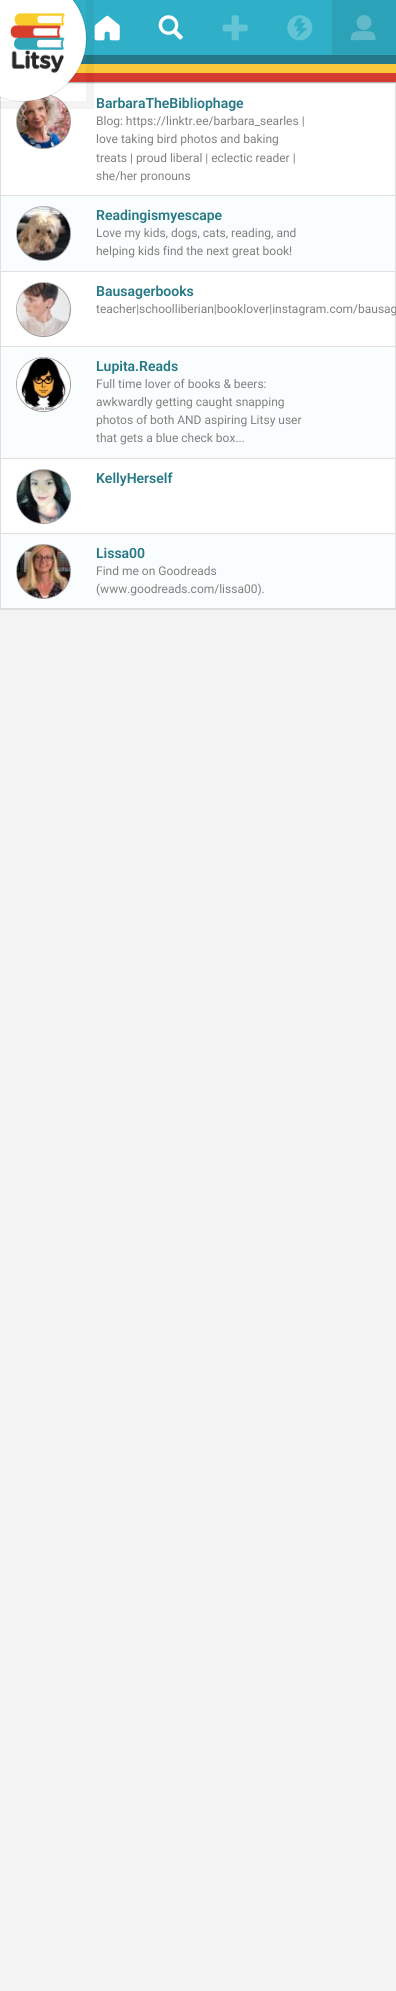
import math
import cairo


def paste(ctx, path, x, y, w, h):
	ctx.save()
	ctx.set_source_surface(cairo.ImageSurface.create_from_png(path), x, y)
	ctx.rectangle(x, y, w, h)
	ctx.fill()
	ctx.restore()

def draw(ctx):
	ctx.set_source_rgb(0.953, 0.953, 0.953)
	ctx.paint()
	ctx.set_source_rgb(1, 1, 1)
	ctx.rectangle(1, 84, 394, 449)
	ctx.fill()
	ctx.rectangle(0.5, 82.5, 395, 527)
	ctx.set_source_rgb(0.875, 0.875, 0.875)
	ctx.set_line_width(1)
	ctx.stroke()
	ctx.set_source_rgba(0, 0, 0, 0.21)
	ctx.rectangle(67, 82, 329, 1)
	ctx.fill()
	ctx.set_source_rgb(0.839, 0.231, 0.184)
	ctx.rectangle(68, 73, 328, 9)
	ctx.fill()
	ctx.set_source_rgb(0.976, 0.788, 0.224)
	ctx.rectangle(75, 64, 321, 9)
	ctx.fill()
	ctx.set_source_rgb(0.137, 0.467, 0.525)
	ctx.rectangle(80, 55, 316, 9)
	ctx.fill()
	ctx.set_source_rgb(0.184, 0.69, 0.784)
	ctx.rectangle(72, 0, 260, 55)
	ctx.fill()
	ctx.set_source_rgb(0.91, 0.91, 0.91)
	ctx.rectangle(66, 83, 329, 1)
	ctx.fill()
	paste(ctx, 'media/7.png', 17, 95, 54, 54)
	ctx.arc(43.5, 121.5, 27, 0, 2 * math.pi)
	ctx.set_source_rgba(0, 0, 0, 0.3)
	ctx.stroke()
	paste(ctx, 'media/8.png', 17, 95, 53, 53)
	ctx.rectangle(-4, -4, 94, 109)
	ctx.set_source_rgba(0, 0, 0, 0.05)
	ctx.set_line_width(8)
	ctx.stroke()
	ctx.arc(23.5, 38.5, 63, 0, 2 * math.pi)
	ctx.set_source_rgba(0, 0, 0, 0.1)
	ctx.set_line_width(1)
	ctx.stroke()
	ctx.set_source_rgb(1, 1, 1)
	ctx.arc(23.5, 38.5, 62.5, 0, 2 * math.pi)
	ctx.fill()
	paste(ctx, 'media/1.png', 10, 13, 55, 60)
	paste(ctx, 'media/2.png', 94, 15, 26, 26)
	paste(ctx, 'media/3.png', 158, 15, 25, 25)
	paste(ctx, 'media/4.png', 222, 15, 26, 26)
	paste(ctx, 'media/5.png', 287, 15, 26, 26)
	ctx.set_source_rgb(0.173, 0.635, 0.722)
	ctx.rectangle(332, 0, 64, 55)
	ctx.fill()
	paste(ctx, 'media/6.png', 350, 15, 26, 26)
	ctx.set_source_rgb(0.875, 0.875, 0.875)
	ctx.rectangle(1, 195, 394, 1)
	ctx.fill()
	ctx.select_font_face('Roboto SemiBold')
	ctx.set_font_size(14)
	ctx.set_source_rgb(0.145, 0.471, 0.522)
	ctx.move_to(96, 108)
	ctx.show_text('BarbaraTheBibliophage')
	ctx.select_font_face('Roboto')
	ctx.set_font_size(12)
	ctx.set_source_rgb(0.502, 0.502, 0.502)
	for x, y, s in [
		(96, 125, 'Blog: https://linktr.ee/barbara_searles |'),
		(96, 143, 'love taking bird photos and baking'),
		(96, 162, 'treats | proud liberal | eclectic reader |'),
		(96, 180, 'she/her pronouns'),
	]:
		ctx.move_to(x, y)
		ctx.show_text(s)
	ctx.set_source_rgb(0.976, 0.992, 0.992)
	ctx.rectangle(1, 196, 394, 75)
	ctx.fill()
	ctx.set_source_rgb(0.875, 0.875, 0.875)
	ctx.rectangle(1, 271, 394, 1)
	ctx.fill()
	paste(ctx, 'media/9.png', 17, 207, 54, 54)
	ctx.arc(43.5, 233.5, 27, 0, 2 * math.pi)
	ctx.set_source_rgba(0, 0, 0, 0.3)
	ctx.stroke()
	paste(ctx, 'media/10.png', 17, 207, 53, 53)
	ctx.select_font_face('Roboto SemiBold')
	ctx.set_font_size(14)
	ctx.set_source_rgb(0.145, 0.471, 0.522)
	ctx.move_to(96, 220)
	ctx.show_text('Readingismyescape')
	ctx.select_font_face('Roboto')
	ctx.set_font_size(12)
	ctx.set_source_rgb(0.502, 0.502, 0.502)
	ctx.move_to(96, 237)
	ctx.show_text('Love my kids, dogs, cats, reading, and')
	ctx.move_to(96, 255)
	ctx.show_text('helping kids find the next great book!')
	ctx.set_source_rgb(0.875, 0.875, 0.875)
	ctx.rectangle(1, 346, 394, 1)
	ctx.fill()
	paste(ctx, 'media/11.png', 17, 283, 54, 54)
	ctx.arc(43.5, 309.5, 27, 0, 2 * math.pi)
	ctx.set_source_rgba(0, 0, 0, 0.3)
	ctx.stroke()
	paste(ctx, 'media/12.png', 17, 283, 53, 53)
	ctx.select_font_face('Roboto SemiBold')
	ctx.set_font_size(14)
	ctx.set_source_rgb(0.145, 0.471, 0.522)
	ctx.move_to(96, 296)
	ctx.show_text('Bausagerbooks')
	ctx.select_font_face('Roboto')
	ctx.set_font_size(12)
	ctx.set_source_rgb(0.502, 0.502, 0.502)
	ctx.move_to(96, 313)
	ctx.show_text('teacher|schoolliberian|booklover|instagram.com/bausag')
	ctx.set_source_rgb(0.976, 0.992, 0.992)
	ctx.rectangle(1, 347, 394, 111)
	ctx.fill()
	ctx.set_source_rgb(0.875, 0.875, 0.875)
	ctx.rectangle(1, 458, 394, 1)
	ctx.fill()
	paste(ctx, 'media/13.png', 17, 358, 54, 54)
	ctx.arc(43.5, 384.5, 27, 0, 2 * math.pi)
	ctx.set_source_rgba(0, 0, 0, 0.3)
	ctx.stroke()
	paste(ctx, 'media/14.png', 17, 358, 53, 53)
	ctx.select_font_face('Roboto SemiBold')
	ctx.set_font_size(14)
	ctx.set_source_rgb(0.145, 0.471, 0.522)
	ctx.move_to(96, 371)
	ctx.show_text('Lupita.Reads')
	ctx.select_font_face('Roboto')
	ctx.set_font_size(12)
	ctx.set_source_rgb(0.502, 0.502, 0.502)
	for x, y, s in [
		(96, 388, 'Full time lover of books & beers:'),
		(96, 406, 'awkwardly getting caught snapping'),
		(96, 424, 'photos of both AND aspiring Litsy user'),
		(96, 442, 'that gets a blue check box...'),
	]:
		ctx.move_to(x, y)
		ctx.show_text(s)
	ctx.set_source_rgb(0.875, 0.875, 0.875)
	ctx.rectangle(1, 533, 394, 1)
	ctx.fill()
	paste(ctx, 'media/15.png', 17, 470, 54, 54)
	ctx.arc(43.5, 496.5, 27, 0, 2 * math.pi)
	ctx.set_source_rgba(0, 0, 0, 0.3)
	ctx.stroke()
	paste(ctx, 'media/16.png', 17, 470, 53, 53)
	ctx.select_font_face('Roboto SemiBold')
	ctx.set_font_size(14)
	ctx.set_source_rgb(0.145, 0.471, 0.522)
	ctx.move_to(96, 483)
	ctx.show_text('KellyHerself')
	ctx.set_source_rgb(0.976, 0.992, 0.992)
	ctx.rectangle(1, 534, 394, 74)
	ctx.fill()
	ctx.set_source_rgb(0.875, 0.875, 0.875)
	ctx.rectangle(1, 608, 394, 1)
	ctx.fill()
	paste(ctx, 'media/17.png', 17, 545, 54, 54)
	ctx.arc(43.5, 571.5, 27, 0, 2 * math.pi)
	ctx.set_source_rgba(0, 0, 0, 0.3)
	ctx.stroke()
	paste(ctx, 'media/18.png', 17, 545, 53, 53)
	ctx.set_source_rgb(0.145, 0.471, 0.522)
	ctx.move_to(96, 558)
	ctx.show_text('Lissa00')
	ctx.select_font_face('Roboto')
	ctx.set_font_size(12)
	ctx.set_source_rgb(0.502, 0.502, 0.502)
	ctx.move_to(96, 575)
	ctx.show_text('Find me on Goodreads')
	ctx.move_to(96, 593)
	ctx.show_text('(www.goodreads.com/lissa00).')


surface = cairo.ImageSurface(cairo.FORMAT_RGB24, 396, 1991)
ctx = cairo.Context(surface)
options = cairo.FontOptions()
options.set_hint_metrics(cairo.HINT_METRICS_OFF)
options.set_hint_style(cairo.HINT_STYLE_NONE)
ctx.set_font_options(options)
ctx.set_miter_limit(4)
draw(ctx)
surface.write_to_png('image.png')
